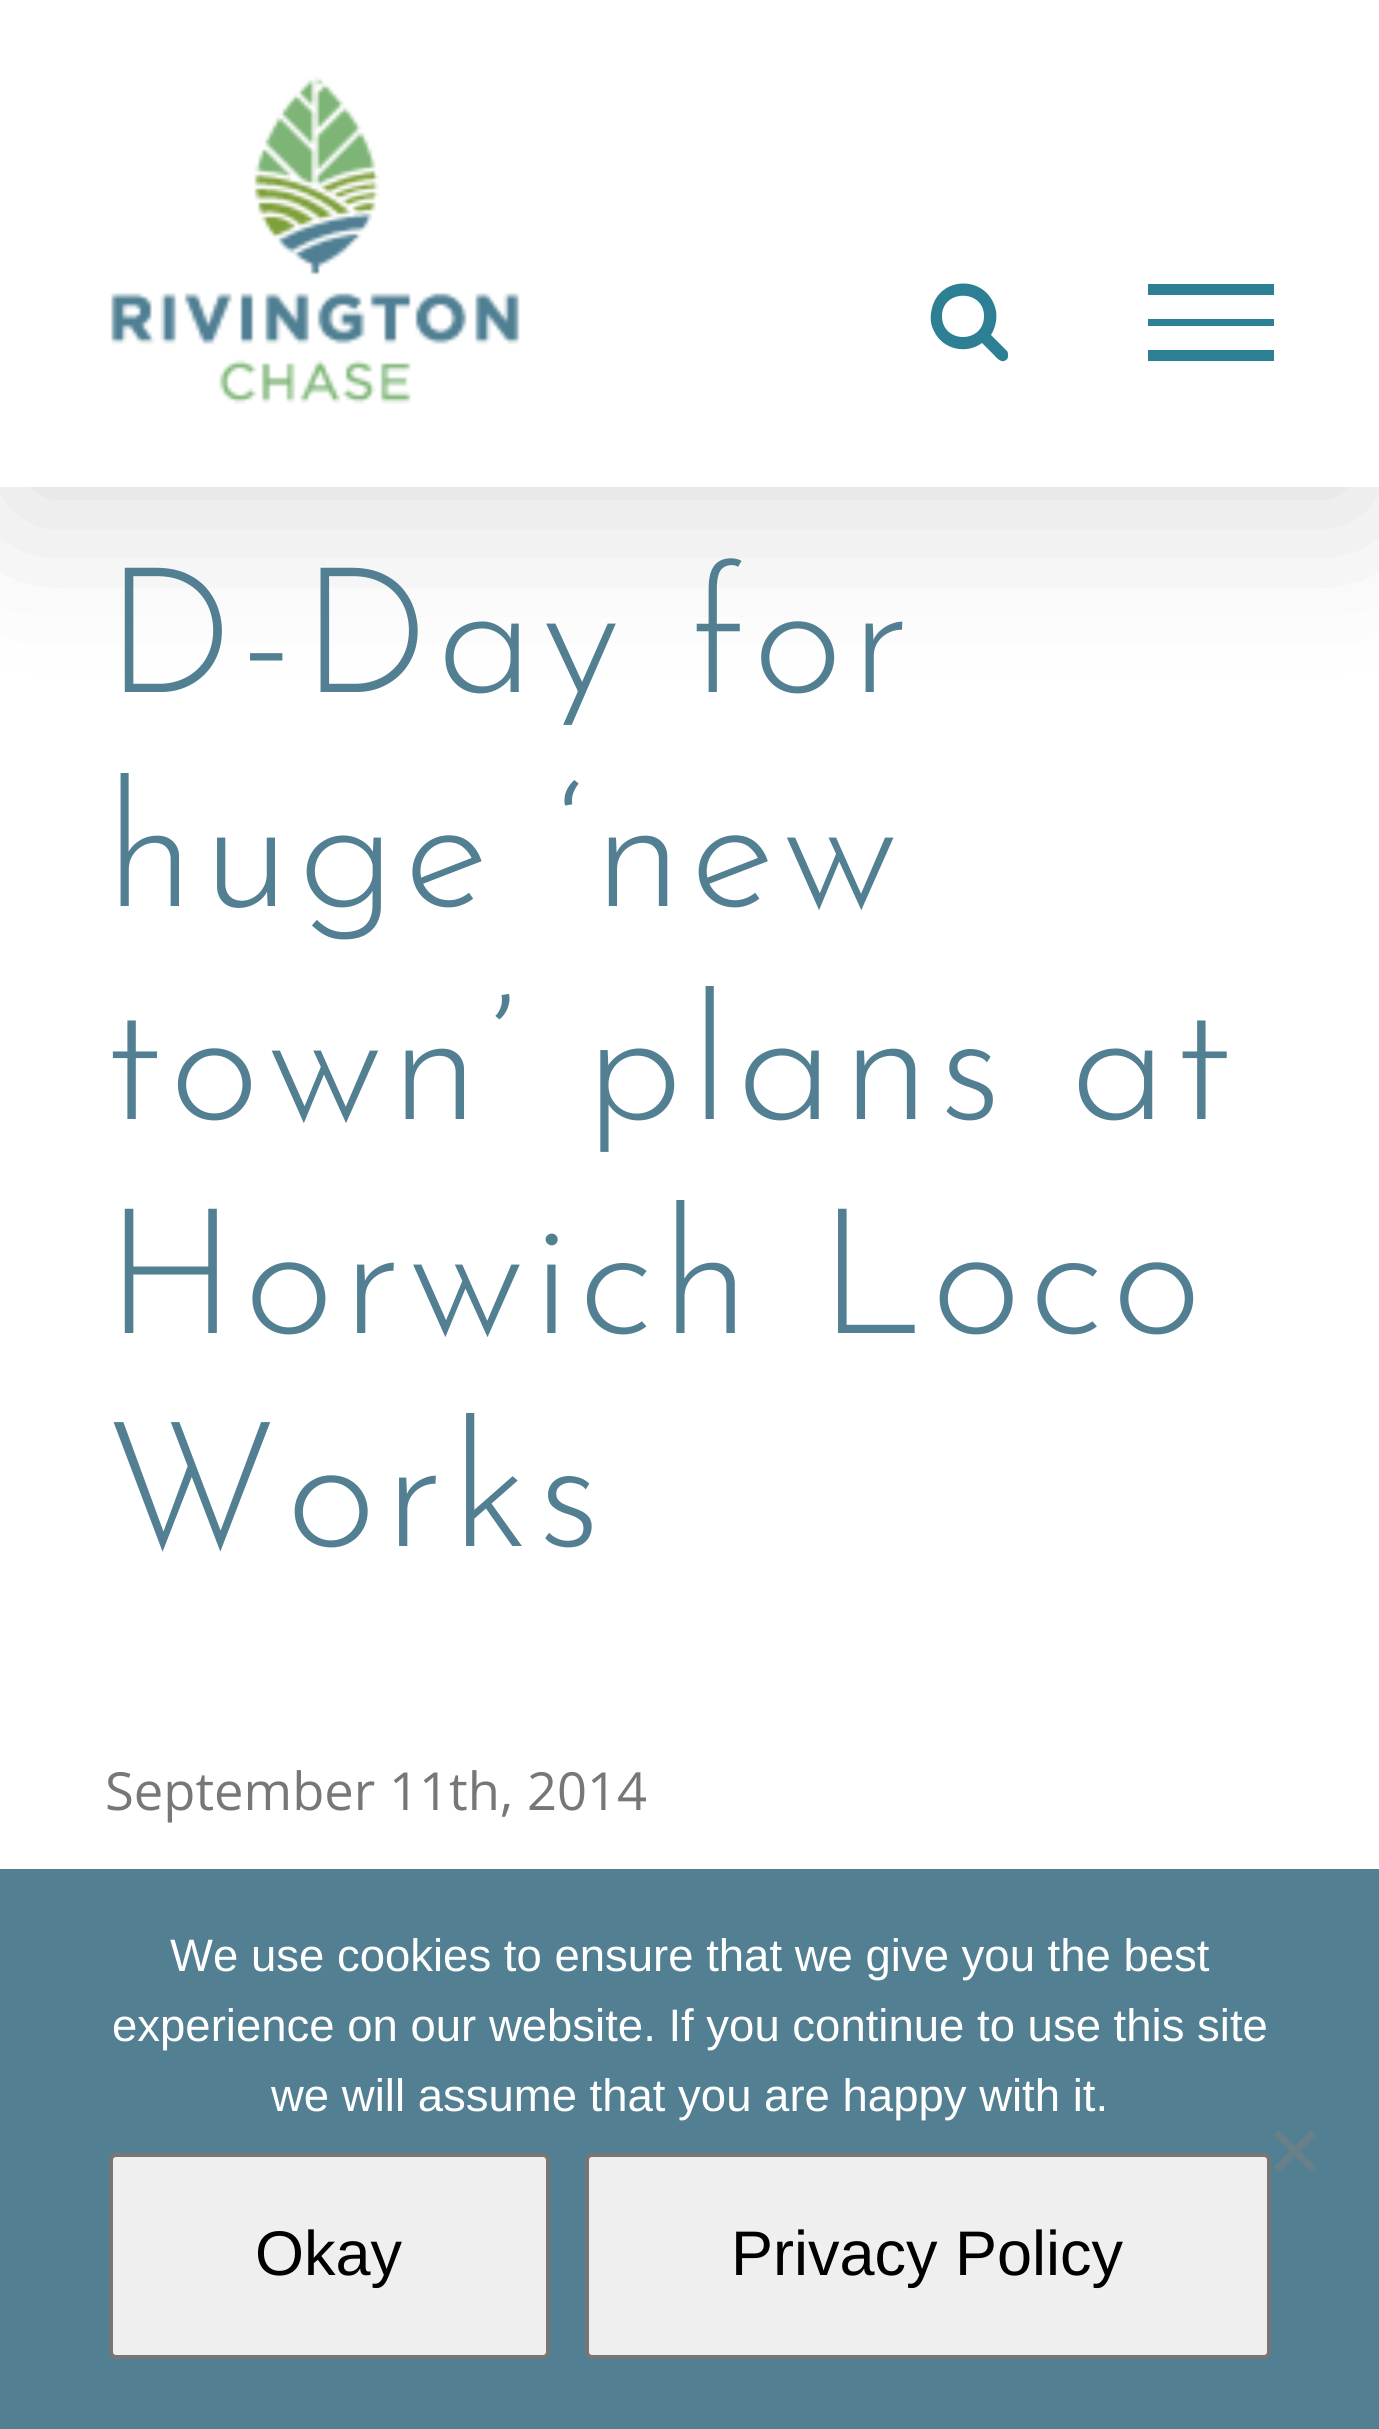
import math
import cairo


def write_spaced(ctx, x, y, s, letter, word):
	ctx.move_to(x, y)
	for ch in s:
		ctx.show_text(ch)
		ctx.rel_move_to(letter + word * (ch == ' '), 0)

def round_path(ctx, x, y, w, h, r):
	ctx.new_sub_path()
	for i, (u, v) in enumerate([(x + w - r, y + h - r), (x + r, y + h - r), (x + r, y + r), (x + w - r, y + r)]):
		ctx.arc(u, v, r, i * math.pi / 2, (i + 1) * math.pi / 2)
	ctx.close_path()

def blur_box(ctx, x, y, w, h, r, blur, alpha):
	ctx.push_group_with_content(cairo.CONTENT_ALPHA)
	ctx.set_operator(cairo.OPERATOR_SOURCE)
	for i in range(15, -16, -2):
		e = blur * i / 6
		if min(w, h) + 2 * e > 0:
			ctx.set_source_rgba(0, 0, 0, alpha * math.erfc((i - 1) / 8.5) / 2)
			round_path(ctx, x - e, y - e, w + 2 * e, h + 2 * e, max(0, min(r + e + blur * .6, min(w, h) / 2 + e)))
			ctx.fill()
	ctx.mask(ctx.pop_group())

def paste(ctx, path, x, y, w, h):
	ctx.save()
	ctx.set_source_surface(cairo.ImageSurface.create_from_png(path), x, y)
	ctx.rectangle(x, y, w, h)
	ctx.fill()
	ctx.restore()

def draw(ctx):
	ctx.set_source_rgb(1, 1, 1)
	ctx.paint()
	ctx.set_source_rgb(0, 0, 0)
	blur_box(ctx, 7, 42, 1365, 473, 0, 87.5, 0.14)
	ctx.set_source_rgb(1, 1, 1)
	ctx.rectangle(0, 0, 1379, 487)
	ctx.fill()
	paste(ctx, 'media/1.png', 110, 76, 410, 328)
	ctx.set_source_rgb(0.176, 0.502, 0.576)
	ctx.new_path()
	ctx.move_to(984, 316)
	ctx.curve_to(984, 289, 942, 289, 942, 316)
	ctx.curve_to(942, 344, 984, 344, 984, 316)
	ctx.close_path()
	ctx.move_to(1008, 355)
	ctx.curve_to(1008, 357, 1008, 359, 1006, 360)
	ctx.curve_to(1001, 364, 996, 357, 993, 354)
	ctx.line_to(982, 343)
	ctx.curve_to(966, 355, 942, 349, 934, 331)
	ctx.curve_to(930, 324, 930, 316, 932, 308)
	ctx.curve_to(940, 276, 985, 275, 995, 307)
	ctx.curve_to(998, 316, 996, 327, 991, 335)
	ctx.line_to(1007, 351)
	ctx.curve_to(1008, 352, 1008, 354, 1008, 355)
	ctx.close_path()
	ctx.fill()
	ctx.rectangle(1148, 284, 126, 11)
	ctx.rectangle(1148, 319, 126, 7)
	ctx.rectangle(1148, 350, 126, 11)
	ctx.fill()
	ctx.select_font_face('Josefin Sans Light')
	ctx.set_font_size(175)
	ctx.set_source_rgb(0.322, 0.498, 0.573)
	for x, y, s in [
		(105, 692, 'D-Day for'),
		(105, 906, 'huge ‘new'),
		(105, 1119, 'town’ plans at'),
		(105, 1333, 'Horwich Loco'),
		(105, 1546, 'Works'),
	]:
		write_spaced(ctx, x, y, s, 7, 0)
	ctx.select_font_face('Open Sans')
	ctx.set_font_size(52.5)
	ctx.set_source_rgb(0.467, 0.467, 0.467)
	ctx.move_to(105, 1810)
	ctx.show_text('September 11th, 2014')
	ctx.set_source_rgb(0.322, 0.498, 0.573)
	ctx.rectangle(0, 1869, 1379, 560)
	ctx.fill()
	ctx.select_font_face('Liberation Sans')
	ctx.set_font_size(45.5)
	ctx.set_source_rgb(1, 1, 1)
	for x, y, s in [
		(170, 1971, 'We use cookies to ensure that we give you the best'),
		(112, 2041, 'experience on our website. If you continue to use this site'),
		(271, 2111, 'we will assume that you are happy with it.'),
	]:
		ctx.move_to(x, y)
		ctx.show_text(s)
	ctx.set_source_rgb(0.412, 0.502, 0.537)
	ctx.new_path()
	ctx.move_to(1311, 2130)
	ctx.line_to(1316, 2135)
	ctx.line_to(1279, 2172)
	ctx.line_to(1274, 2167)
	ctx.close_path()
	ctx.fill()
	ctx.new_path()
	ctx.move_to(1274, 2135)
	ctx.line_to(1279, 2130)
	ctx.line_to(1316, 2167)
	ctx.line_to(1311, 2172)
	ctx.close_path()
	ctx.fill()
	ctx.set_source_rgb(0.937, 0.937, 0.937)
	round_path(ctx, 111, 2155, 437, 202, 5)
	ctx.fill_preserve()
	ctx.set_source_rgb(0.463, 0.463, 0.463)
	ctx.set_line_width(4)
	ctx.stroke()
	ctx.set_font_size(63)
	ctx.set_source_rgb(0, 0, 0)
	ctx.move_to(255, 2275)
	ctx.show_text('Okay')
	ctx.set_source_rgb(0.937, 0.937, 0.937)
	round_path(ctx, 587, 2155, 682, 202, 5)
	ctx.fill_preserve()
	ctx.set_source_rgb(0.463, 0.463, 0.463)
	ctx.stroke()
	ctx.set_source_rgb(0, 0, 0)
	ctx.move_to(731, 2275)
	ctx.show_text('Privacy Policy')


surface = cairo.ImageSurface(cairo.FORMAT_RGB24, 1379, 2429)
ctx = cairo.Context(surface)
options = cairo.FontOptions()
options.set_hint_metrics(cairo.HINT_METRICS_OFF)
options.set_hint_style(cairo.HINT_STYLE_NONE)
ctx.set_font_options(options)
ctx.set_miter_limit(4)
draw(ctx)
surface.write_to_png('image.png')
